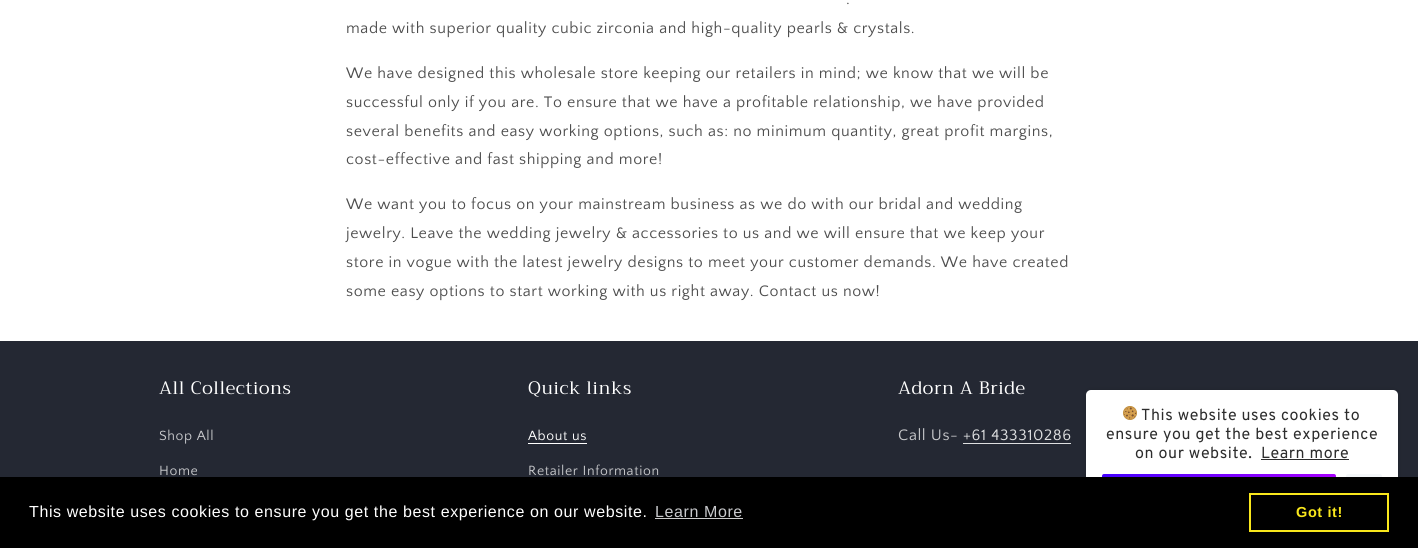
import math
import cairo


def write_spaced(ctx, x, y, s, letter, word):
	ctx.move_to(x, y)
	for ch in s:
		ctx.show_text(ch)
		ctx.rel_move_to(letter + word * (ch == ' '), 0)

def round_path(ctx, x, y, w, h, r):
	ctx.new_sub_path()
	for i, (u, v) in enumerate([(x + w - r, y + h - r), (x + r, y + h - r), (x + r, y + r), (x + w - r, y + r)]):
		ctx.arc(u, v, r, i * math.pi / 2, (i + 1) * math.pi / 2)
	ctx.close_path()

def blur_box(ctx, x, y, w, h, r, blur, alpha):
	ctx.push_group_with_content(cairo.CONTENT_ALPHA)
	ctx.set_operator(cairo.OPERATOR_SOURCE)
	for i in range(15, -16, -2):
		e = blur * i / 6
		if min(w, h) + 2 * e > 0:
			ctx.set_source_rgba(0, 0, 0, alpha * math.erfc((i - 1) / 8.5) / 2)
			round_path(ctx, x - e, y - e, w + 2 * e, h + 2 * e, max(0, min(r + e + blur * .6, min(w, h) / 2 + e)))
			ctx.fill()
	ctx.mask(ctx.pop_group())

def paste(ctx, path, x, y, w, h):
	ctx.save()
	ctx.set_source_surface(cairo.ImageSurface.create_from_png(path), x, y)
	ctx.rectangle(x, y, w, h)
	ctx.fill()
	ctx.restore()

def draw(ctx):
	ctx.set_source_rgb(1, 1, 1)
	ctx.paint()
	ctx.select_font_face('Quattrocento Sans')
	ctx.set_font_size(16)
	ctx.set_source_rgb(0.302, 0.302, 0.302)
	for x, y, s in [
		(846, 4, '.'),
		(346, 33, 'made with superior quality cubic zirconia and high-quality pearls & crystals.'),
		(346, 78, 'We have designed this wholesale store keeping our retailers in mind; we know that we will be'),
		(346, 107, 'successful only if you are. To ensure that we have a profitable relationship, we have provided'),
		(346, 136, 'several benefits and easy working options, such as: no minimum quantity, great profit margins,'),
		(346, 164, 'cost-effective and fast shipping and more!'),
		(346, 209, 'We want you to focus on your mainstream business as we do with our bridal and wedding'),
		(346, 238, 'jewelry. Leave the wedding jewelry & accessories to us and we will ensure that we keep your'),
		(346, 267, 'store in vogue with the latest jewelry designs to meet your customer demands. We have created'),
		(346, 296, 'some easy options to start working with us right away. Contact us now!'),
	]:
		write_spaced(ctx, x, y, s, 0.6, 0)
	ctx.set_source_rgb(0.141, 0.157, 0.2)
	ctx.rectangle(0, 341, 1418, 136)
	ctx.fill()
	ctx.select_font_face('Trirong')
	ctx.set_font_size(18)
	ctx.set_source_rgb(1, 1, 1)
	write_spaced(ctx, 159, 394, 'All Collections', 0.6, 0)
	ctx.select_font_face('Quattrocento Sans')
	ctx.set_font_size(14)
	ctx.set_source_rgb(0.784, 0.788, 0.8)
	write_spaced(ctx, 159, 440, 'Shop All', 0.6, 0)
	write_spaced(ctx, 159, 475, 'Home', 0.6, 0)
	ctx.select_font_face('Trirong')
	ctx.set_font_size(18)
	ctx.set_source_rgb(1, 1, 1)
	write_spaced(ctx, 528, 394, 'Quick links', 0.6, 0)
	ctx.select_font_face('Quattrocento Sans')
	ctx.set_font_size(14)
	write_spaced(ctx, 528, 440, 'About us', 0.6, 0)
	ctx.rectangle(528, 443, 59, 1)
	ctx.fill()
	ctx.set_source_rgb(0.784, 0.788, 0.8)
	write_spaced(ctx, 528, 475, 'Retailer Information', 0.6, 0)
	ctx.select_font_face('Trirong')
	ctx.set_font_size(18)
	ctx.set_source_rgb(1, 1, 1)
	write_spaced(ctx, 898, 394, 'Adorn A Bride', 0.6, 0)
	ctx.select_font_face('Quattrocento Sans')
	ctx.set_font_size(16)
	ctx.set_source_rgb(0.784, 0.788, 0.8)
	write_spaced(ctx, 898, 440, 'Call Us-', 0.6, 0)
	ctx.set_source_rgb(0.871, 0.875, 0.878)
	write_spaced(ctx, 963, 440, '+61 433310286', 0.6, 0)
	ctx.rectangle(963, 443, 108, 1)
	ctx.fill()
	ctx.set_source_rgb(1, 1, 1)
	round_path(ctx, 1086, 390, 312, 138, 5)
	ctx.fill()
	ctx.save()
	ctx.set_fill_rule(cairo.FILL_RULE_EVEN_ODD)
	ctx.new_path()
	ctx.move_to(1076, 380)
	ctx.line_to(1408, 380)
	ctx.line_to(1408, 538)
	ctx.line_to(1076, 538)
	ctx.close_path()
	ctx.move_to(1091, 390)
	ctx.line_to(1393, 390)
	ctx.curve_to(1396, 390, 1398, 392, 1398, 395)
	ctx.line_to(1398, 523)
	ctx.curve_to(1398, 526, 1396, 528, 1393, 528)
	ctx.line_to(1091, 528)
	ctx.curve_to(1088, 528, 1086, 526, 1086, 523)
	ctx.line_to(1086, 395)
	ctx.curve_to(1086, 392, 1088, 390, 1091, 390)
	ctx.close_path()
	ctx.clip()
	ctx.set_source_rgb(0, 0, 0)
	blur_box(ctx, 1086, 390, 312, 138, 5, 3, 0.12)
	ctx.restore()
	paste(ctx, 'media/1.png', 1123, 406, 14, 14)
	ctx.select_font_face('Overpass')
	ctx.set_source_rgb(0.176, 0.176, 0.176)
	for x, y, s in [
		(1141, 420, 'This website uses cookies to'),
		(1106, 439, 'ensure you get the best experience'),
		(1135, 458, 'on our website.'),
		(1261, 458, 'Learn more'),
	]:
		write_spaced(ctx, x, y, s, 0.6, 0)
	ctx.rectangle(1261, 459, 88, 1)
	ctx.fill()
	gradient = cairo.LinearGradient(1102, 493, 1336, 493)
	gradient.add_color_stop_rgba(0, 0.267, 0.004, 1, 1)
	gradient.add_color_stop_rgba(1, 0.663, 0.004, 1, 1)
	ctx.set_source(gradient)
	round_path(ctx, 1102, 474, 234, 38, 2)
	ctx.fill()
	ctx.set_source_rgb(0.957, 0.965, 0.973)
	round_path(ctx, 1346, 474, 36, 38, 2)
	ctx.fill()
	ctx.set_source_rgb(0, 0, 0)
	ctx.rectangle(0, 477, 1418, 71)
	ctx.fill()
	ctx.select_font_face('Liberation Sans')
	ctx.set_source_rgb(1, 1, 1)
	write_spaced(ctx, 29, 517, 'This website uses cookies to ensure you get the best experience on our website.', 0.6, 0)
	ctx.set_source_rgb(0.784, 0.788, 0.8)
	write_spaced(ctx, 655, 517, 'Learn More', 0.6, 0)
	ctx.set_source_rgb(0.8, 0.8, 0.8)
	ctx.rectangle(655, 518, 88, 1)
	ctx.fill()
	ctx.rectangle(1250, 494, 138, 37)
	ctx.set_source_rgb(0.973, 0.906, 0.11)
	ctx.stroke()
	ctx.select_font_face('Liberation Sans', cairo.FONT_SLANT_NORMAL, cairo.FONT_WEIGHT_BOLD)
	ctx.set_font_size(14.5)
	write_spaced(ctx, 1296, 517, 'Got it!', 0.6, 0)


surface = cairo.ImageSurface(cairo.FORMAT_RGB24, 1418, 548)
ctx = cairo.Context(surface)
options = cairo.FontOptions()
options.set_hint_metrics(cairo.HINT_METRICS_OFF)
options.set_hint_style(cairo.HINT_STYLE_NONE)
ctx.set_font_options(options)
ctx.set_miter_limit(4)
draw(ctx)
surface.write_to_png('image.png')
